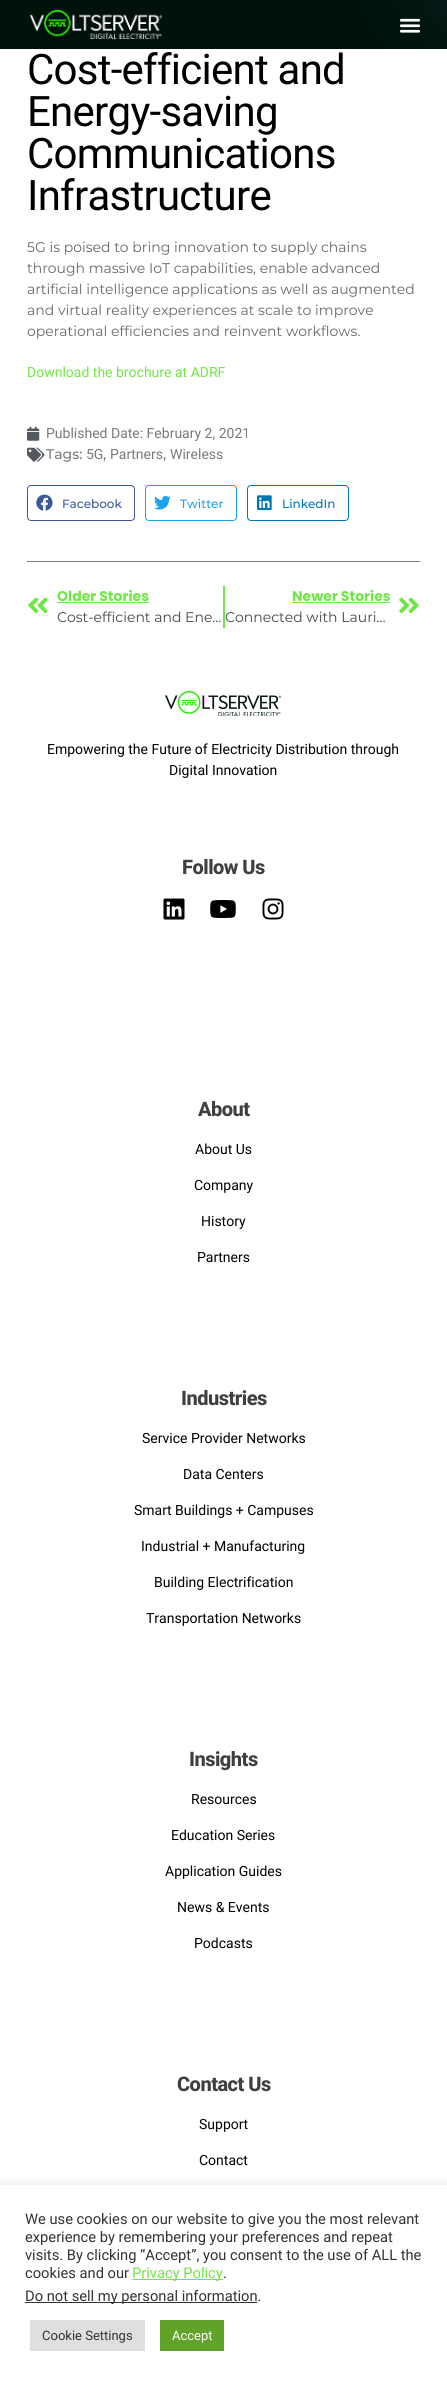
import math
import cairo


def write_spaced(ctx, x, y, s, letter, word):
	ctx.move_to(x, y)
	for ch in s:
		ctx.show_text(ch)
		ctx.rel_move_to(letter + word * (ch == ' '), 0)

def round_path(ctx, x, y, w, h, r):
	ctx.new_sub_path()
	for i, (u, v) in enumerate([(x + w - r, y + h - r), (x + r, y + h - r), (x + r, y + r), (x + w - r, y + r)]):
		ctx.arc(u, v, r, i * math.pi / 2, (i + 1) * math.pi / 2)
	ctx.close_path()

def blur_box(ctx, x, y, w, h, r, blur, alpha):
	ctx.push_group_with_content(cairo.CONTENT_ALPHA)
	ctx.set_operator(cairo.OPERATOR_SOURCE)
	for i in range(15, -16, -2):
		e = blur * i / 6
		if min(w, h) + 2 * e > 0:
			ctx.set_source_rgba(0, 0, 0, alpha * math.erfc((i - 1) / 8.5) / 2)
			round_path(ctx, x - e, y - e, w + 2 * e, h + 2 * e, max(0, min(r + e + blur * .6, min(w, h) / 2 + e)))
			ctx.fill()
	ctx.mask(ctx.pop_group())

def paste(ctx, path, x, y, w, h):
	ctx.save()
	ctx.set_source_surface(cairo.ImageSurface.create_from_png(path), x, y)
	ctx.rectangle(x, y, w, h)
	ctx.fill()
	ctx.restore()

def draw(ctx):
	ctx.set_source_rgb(1, 1, 1)
	ctx.paint()
	paste(ctx, 'media/1.png', 0, 0, 447, 49)
	paste(ctx, 'media/2.png', 30, 10, 132, 29)
	paste(ctx, 'media/3.png', 399, 18, 22, 15)
	ctx.select_font_face('Roboto')
	ctx.set_font_size(42)
	ctx.set_source_rgb(0, 0, 0)
	for x, y, s in [
		(27, 84, 'Cost-efficient and'),
		(27, 126, 'Energy-saving'),
		(27, 168, 'Communications'),
		(27, 210, 'Infrastructure'),
	]:
		write_spaced(ctx, x, y, s, -0.75, 0)
	ctx.select_font_face('Montserrat')
	ctx.set_font_size(14)
	ctx.set_source_rgb(0.408, 0.408, 0.408)
	for x, y, s in [
		(27, 252, '5G is poised to bring innovation to supply chains'),
		(27, 273, 'through massive IoT capabilities, enable advanced'),
		(27, 294, 'artificial intelligence applications as well as augmented'),
		(27, 315, 'and virtual reality experiences at scale to improve'),
		(27, 336, 'operational efficiencies and reinvent workflows.'),
	]:
		ctx.move_to(x, y)
		ctx.show_text(s)
	ctx.select_font_face('Roboto')
	ctx.set_source_rgb(0.439, 0.902, 0.271)
	ctx.move_to(27, 377)
	ctx.show_text('Download the brochure at ADRF')
	paste(ctx, 'media/4.png', 27, 426, 13, 15)
	ctx.set_source_rgb(0.478, 0.478, 0.478)
	ctx.move_to(46, 438)
	ctx.show_text('Published Date: February 2, 2021')
	paste(ctx, 'media/5.png', 27, 447, 18, 15)
	ctx.select_font_face('Montserrat Medium')
	ctx.move_to(46, 459)
	ctx.show_text('Tags:')
	ctx.select_font_face('Roboto')
	ctx.move_to(86, 459)
	ctx.show_text('5G')
	ctx.select_font_face('Montserrat Medium')
	ctx.move_to(103, 459)
	ctx.show_text(',')
	ctx.select_font_face('Roboto')
	ctx.move_to(110, 459)
	ctx.show_text('Partners')
	ctx.select_font_face('Montserrat Medium')
	ctx.move_to(163, 459)
	ctx.show_text(',')
	ctx.select_font_face('Roboto')
	ctx.move_to(170, 459)
	ctx.show_text('Wireless')
	round_path(ctx, 27.5, 485.5, 107, 35, 3.5)
	ctx.set_source_rgb(0.231, 0.349, 0.596)
	ctx.set_line_width(1)
	ctx.stroke()
	paste(ctx, 'media/6.png', 36, 494, 17, 17)
	ctx.select_font_face('Montserrat Medium')
	ctx.set_font_size(12)
	ctx.move_to(62, 508)
	ctx.show_text('Facebook')
	round_path(ctx, 145.5, 485.5, 91, 35, 3.5)
	ctx.set_source_rgb(0.114, 0.631, 0.949)
	ctx.stroke()
	paste(ctx, 'media/7.png', 154, 495, 17, 15)
	ctx.move_to(180, 508)
	ctx.show_text('Twitter')
	round_path(ctx, 247.5, 485.5, 101, 35, 3.5)
	ctx.set_source_rgb(0, 0.467, 0.71)
	ctx.stroke()
	paste(ctx, 'media/8.png', 257, 495, 15, 16)
	ctx.move_to(282, 508)
	ctx.show_text('LinkedIn')
	ctx.set_source_rgb(0.478, 0.478, 0.478)
	ctx.rectangle(27, 561, 393, 1)
	ctx.fill()
	ctx.set_source_rgb(0.439, 0.902, 0.271)
	ctx.rectangle(223, 586, 2, 42)
	ctx.fill()
	paste(ctx, 'media/9.png', 28, 597, 20, 17)
	ctx.select_font_face('Poppins', cairo.FONT_SLANT_NORMAL, cairo.FONT_WEIGHT_BOLD)
	ctx.set_font_size(14)
	ctx.move_to(57, 601)
	ctx.show_text('Older Stories')
	ctx.rectangle(57, 602, 92, 1)
	ctx.fill()
	ctx.select_font_face('Montserrat')
	ctx.set_source_rgb(0.278, 0.278, 0.278)
	ctx.move_to(57, 622)
	ctx.show_text('Cost-efficient and Ene… Connected with Lauri…')
	ctx.select_font_face('Poppins', cairo.FONT_SLANT_NORMAL, cairo.FONT_WEIGHT_BOLD)
	ctx.set_source_rgb(0.439, 0.902, 0.271)
	ctx.move_to(292, 601)
	ctx.show_text('Newer Stories')
	ctx.rectangle(292, 602, 98, 1)
	ctx.fill()
	paste(ctx, 'media/10.png', 399, 597, 20, 17)
	paste(ctx, 'media/11.png', 165, 691, 117, 25)
	ctx.select_font_face('Roboto')
	ctx.set_source_rgb(0, 0, 0)
	ctx.move_to(47, 754)
	ctx.show_text('Empowering the Future of Electricity Distribution through')
	ctx.move_to(169, 775)
	ctx.show_text('Digital Innovation')
	ctx.select_font_face('Roboto ExtraBold')
	ctx.set_font_size(20)
	ctx.set_source_rgb(0.247, 0.247, 0.247)
	write_spaced(ctx, 182, 874, 'Follow Us', -0.5, 0)
	paste(ctx, 'media/12.png', 163, 898, 22, 22)
	paste(ctx, 'media/13.png', 210, 900, 26, 18)
	paste(ctx, 'media/14.png', 262, 898, 22, 22)
	write_spaced(ctx, 198, 1116, 'About', -0.5, 0)
	ctx.select_font_face('Roboto')
	ctx.set_font_size(14)
	ctx.set_source_rgb(0, 0, 0)
	for x, y, s in [
		(195, 1154, 'About Us'),
		(194, 1190, 'Company'),
		(201, 1226, 'History'),
		(197, 1262, 'Partners'),
	]:
		ctx.move_to(x, y)
		ctx.show_text(s)
	ctx.select_font_face('Roboto ExtraBold')
	ctx.set_font_size(20)
	ctx.set_source_rgb(0.247, 0.247, 0.247)
	write_spaced(ctx, 181, 1405, 'Industries', -0.5, 0)
	ctx.select_font_face('Roboto')
	ctx.set_font_size(14)
	ctx.set_source_rgb(0, 0, 0)
	for x, y, s in [
		(142, 1443, 'Service Provider Networks'),
		(183, 1479, 'Data Centers'),
		(134, 1515, 'Smart Buildings + Campuses'),
		(141, 1551, 'Industrial + Manufacturing'),
		(154, 1587, 'Building Electrification'),
		(146, 1623, 'Transportation Networks'),
	]:
		ctx.move_to(x, y)
		ctx.show_text(s)
	ctx.select_font_face('Roboto ExtraBold')
	ctx.set_font_size(20)
	ctx.set_source_rgb(0.247, 0.247, 0.247)
	write_spaced(ctx, 189, 1766, 'Insights', -0.5, 0)
	ctx.select_font_face('Roboto')
	ctx.set_font_size(14)
	ctx.set_source_rgb(0, 0, 0)
	for x, y, s in [
		(191, 1804, 'Resources'),
		(171, 1840, 'Education Series'),
		(165, 1876, 'Application Guides'),
		(177, 1912, 'News & Events'),
		(194, 1948, 'Podcasts'),
	]:
		ctx.move_to(x, y)
		ctx.show_text(s)
	ctx.select_font_face('Roboto ExtraBold')
	ctx.set_font_size(20)
	ctx.set_source_rgb(0.247, 0.247, 0.247)
	write_spaced(ctx, 177, 2091, 'Contact Us', -0.5, 0)
	ctx.select_font_face('Roboto')
	ctx.set_font_size(14)
	ctx.set_source_rgb(0, 0, 0)
	ctx.move_to(199, 2129)
	ctx.show_text('Support')
	ctx.move_to(199, 2165)
	ctx.show_text('Contact')
	ctx.set_source_rgb(0.675, 0.671, 0.671)
	blur_box(ctx, 0, 2184, 447, 196, 0, 5, 0.3)
	ctx.set_source_rgb(1, 1, 1)
	ctx.rectangle(0, 2185, 447, 196)
	ctx.fill()
	ctx.set_font_size(14.7)
	ctx.set_source_rgb(0.2, 0.2, 0.2)
	for x, y, s in [
		(25, 2224, 'We use cookies on our website to give you the most relevant'),
		(25, 2242, 'experience by remembering your preferences and repeat'),
		(25, 2260, 'visits. By clicking “Accept”, you consent to the use of ALL the'),
		(25, 2278, 'cookies and our'),
	]:
		ctx.move_to(x, y)
		ctx.show_text(s)
	ctx.set_source_rgb(0.439, 0.902, 0.271)
	ctx.rectangle(132, 2279, 91, 1)
	ctx.fill()
	ctx.move_to(132, 2278)
	ctx.show_text('Privacy Policy')
	ctx.set_source_rgb(0.2, 0.2, 0.2)
	ctx.move_to(223, 2278)
	ctx.show_text('.')
	ctx.rectangle(25, 2302, 232, 1)
	ctx.fill()
	ctx.move_to(25, 2301)
	ctx.show_text('Do not sell my personal information.')
	ctx.set_source_rgb(0.871, 0.875, 0.878)
	ctx.rectangle(30, 2320, 115, 31)
	ctx.fill()
	ctx.set_font_size(13)
	ctx.set_source_rgb(0.2, 0.2, 0.2)
	ctx.move_to(42, 2340)
	ctx.show_text('Cookie Settings')
	ctx.set_source_rgb(0.38, 0.635, 0.161)
	ctx.rectangle(160, 2320, 64, 31)
	ctx.fill()
	ctx.set_source_rgb(1, 1, 1)
	ctx.move_to(172, 2340)
	ctx.show_text('Accept')


surface = cairo.ImageSurface(cairo.FORMAT_RGB24, 447, 2381)
ctx = cairo.Context(surface)
options = cairo.FontOptions()
options.set_hint_metrics(cairo.HINT_METRICS_OFF)
options.set_hint_style(cairo.HINT_STYLE_NONE)
ctx.set_font_options(options)
ctx.set_miter_limit(4)
draw(ctx)
surface.write_to_png('image.png')
